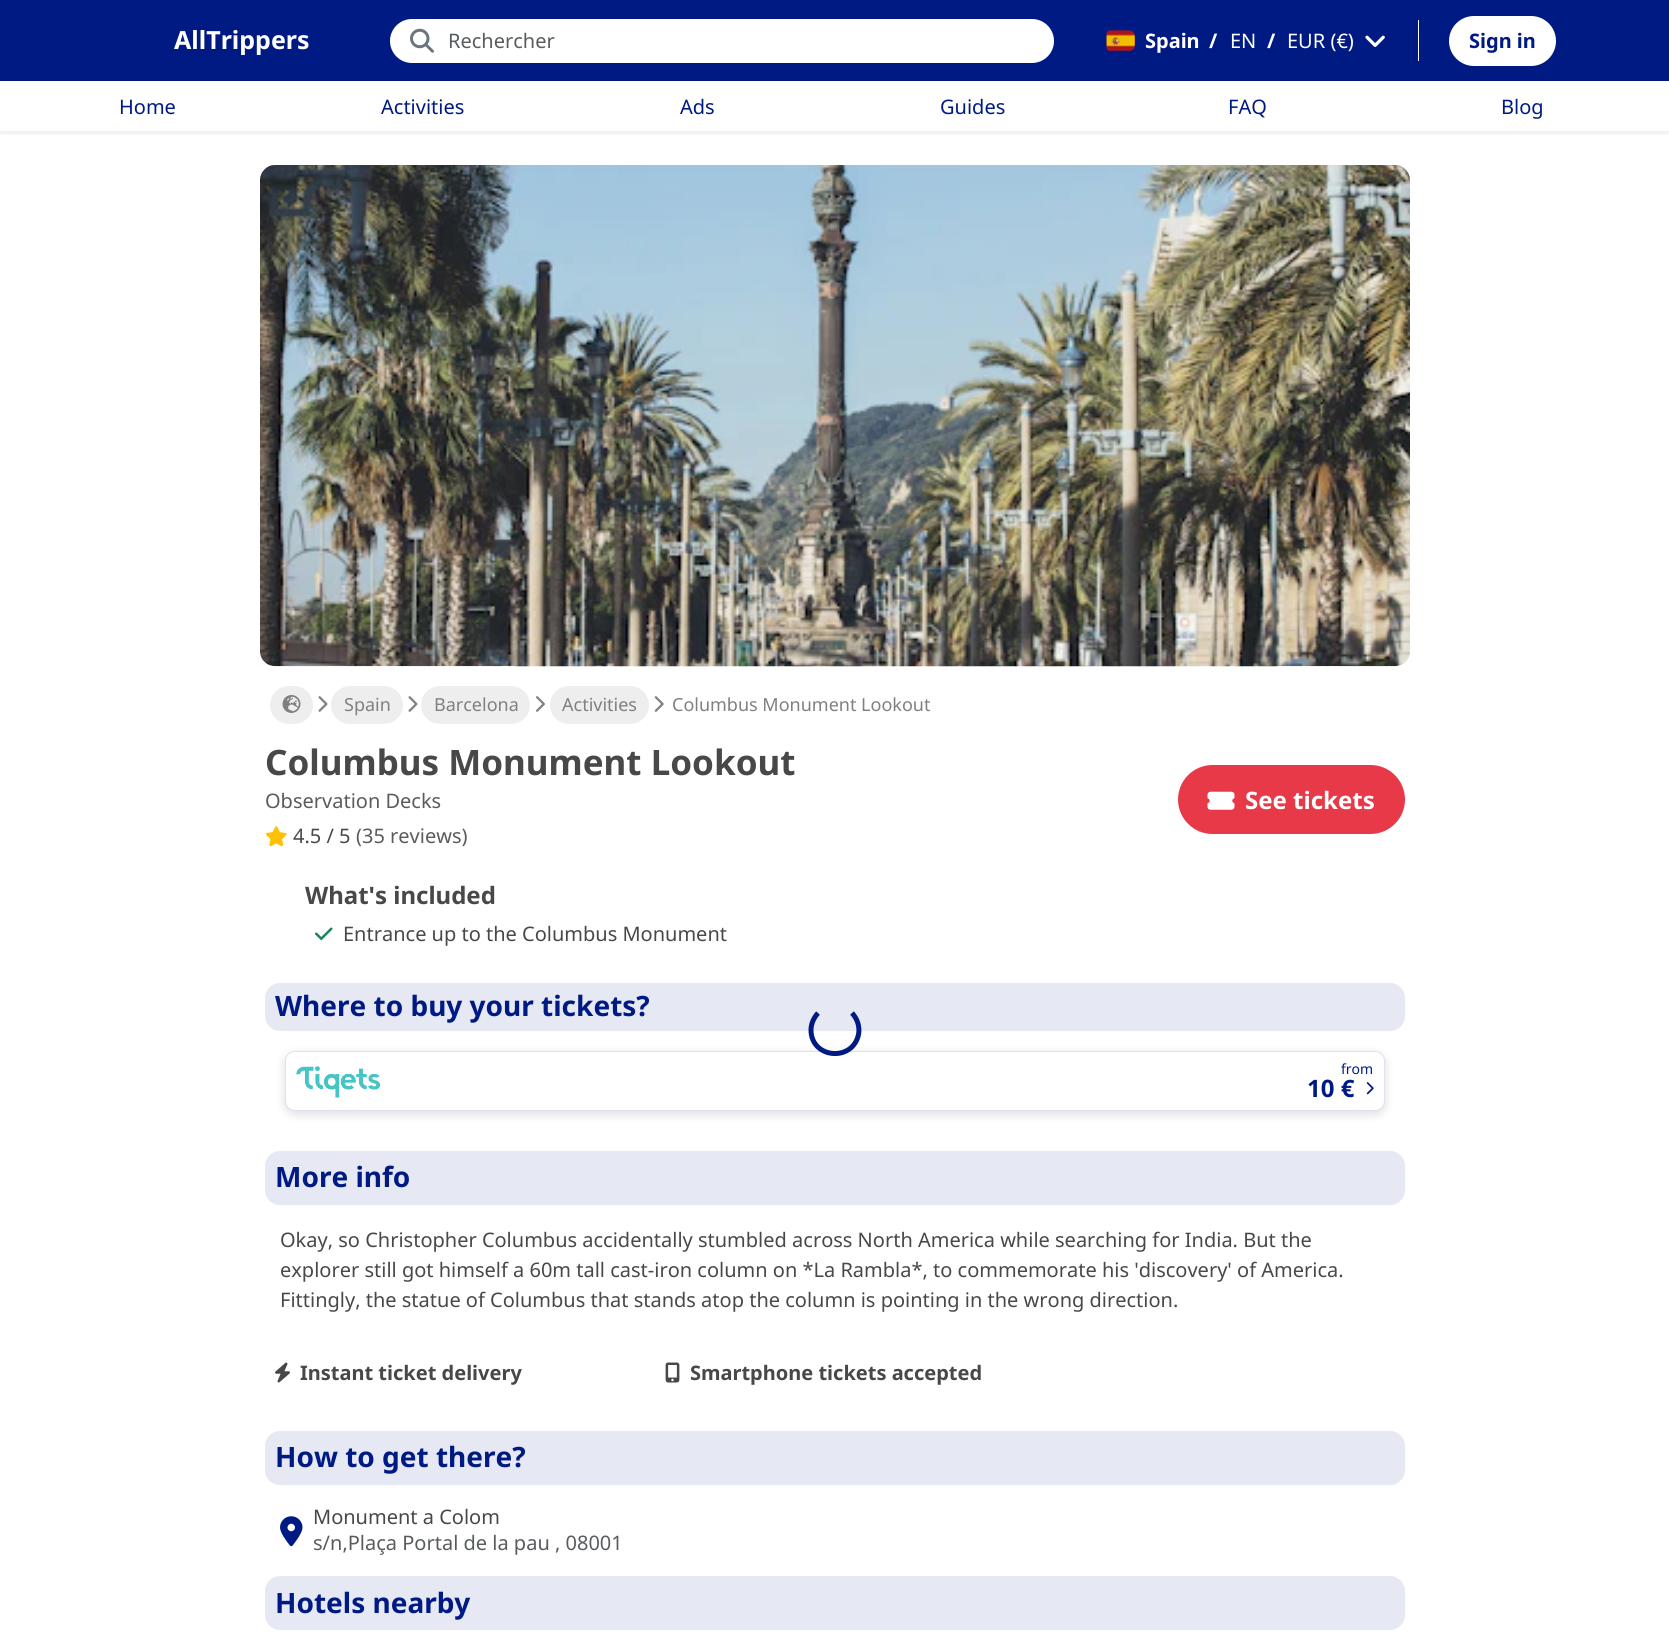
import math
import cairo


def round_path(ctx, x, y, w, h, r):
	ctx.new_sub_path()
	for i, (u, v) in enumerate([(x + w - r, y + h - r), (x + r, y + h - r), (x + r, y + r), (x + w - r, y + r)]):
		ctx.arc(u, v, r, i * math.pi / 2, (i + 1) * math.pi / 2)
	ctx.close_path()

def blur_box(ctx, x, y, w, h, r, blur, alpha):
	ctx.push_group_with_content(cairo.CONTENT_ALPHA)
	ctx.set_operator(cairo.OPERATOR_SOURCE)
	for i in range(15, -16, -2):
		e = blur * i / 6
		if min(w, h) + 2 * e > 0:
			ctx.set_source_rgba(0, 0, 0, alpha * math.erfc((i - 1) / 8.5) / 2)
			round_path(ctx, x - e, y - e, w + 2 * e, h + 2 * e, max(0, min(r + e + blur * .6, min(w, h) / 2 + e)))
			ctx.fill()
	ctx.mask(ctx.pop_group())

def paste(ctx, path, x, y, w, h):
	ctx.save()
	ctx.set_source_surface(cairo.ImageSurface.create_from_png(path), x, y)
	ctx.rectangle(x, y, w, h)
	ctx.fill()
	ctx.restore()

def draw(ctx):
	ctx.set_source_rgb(1, 1, 1)
	ctx.paint()
	ctx.save()
	ctx.rectangle(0, 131, 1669, 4)
	ctx.clip()
	ctx.set_source_rgb(0, 0, 0)
	blur_box(ctx, 0, 3, 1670, 131, 0, 2.5, 0.07)
	ctx.restore()
	ctx.set_source_rgb(0, 0.102, 0.518)
	ctx.rectangle(0, 0, 1669, 81)
	ctx.fill()
	ctx.select_font_face('Noto Sans', cairo.FONT_SLANT_NORMAL, cairo.FONT_WEIGHT_BOLD)
	ctx.set_font_size(25)
	ctx.set_source_rgb(1, 1, 1)
	ctx.move_to(174, 49)
	ctx.show_text('AllTrippers')
	round_path(ctx, 390, 19, 664, 44, 22)
	ctx.fill()
	paste(ctx, 'media/1.png', 410, 28, 24, 25)
	ctx.select_font_face('Noto Sans')
	ctx.set_font_size(20)
	ctx.set_source_rgb(0.349, 0.361, 0.373)
	ctx.move_to(448, 48)
	ctx.show_text('Rechercher')
	paste(ctx, 'media/2.png', 1106, 29, 29, 23)
	ctx.select_font_face('Noto Sans', cairo.FONT_SLANT_NORMAL, cairo.FONT_WEIGHT_BOLD)
	ctx.set_source_rgb(1, 1, 1)
	ctx.move_to(1145, 48)
	ctx.show_text('Spain')
	ctx.move_to(1209, 48)
	ctx.show_text('/')
	ctx.select_font_face('Noto Sans')
	ctx.move_to(1230, 48)
	ctx.show_text('EN')
	ctx.select_font_face('Noto Sans', cairo.FONT_SLANT_NORMAL, cairo.FONT_WEIGHT_BOLD)
	ctx.move_to(1267, 48)
	ctx.show_text('/')
	ctx.select_font_face('Noto Sans')
	ctx.move_to(1287, 48)
	ctx.show_text('EUR (€)')
	paste(ctx, 'media/3.png', 1365, 35, 20, 12)
	ctx.rectangle(1418, 20, 1, 41)
	ctx.fill()
	round_path(ctx, 1449, 16, 107, 50, 25)
	ctx.fill()
	ctx.select_font_face('Noto Sans', cairo.FONT_SLANT_NORMAL, cairo.FONT_WEIGHT_BOLD)
	ctx.set_source_rgb(0, 0.102, 0.518)
	ctx.move_to(1469, 48)
	ctx.show_text('Sign in')
	ctx.select_font_face('Noto Sans')
	for x, y, s in [
		(119, 114, 'Home'),
		(381, 114, 'Activities'),
		(680, 114, 'Ads'),
		(940, 114, 'Guides'),
		(1228, 114, 'FAQ'),
		(1501, 114, 'Blog'),
	]:
		ctx.move_to(x, y)
		ctx.show_text(s)
	paste(ctx, 'media/4.png', 260, 165, 1150, 502)
	ctx.set_source_rgb(0.902, 0.91, 0.953)
	round_path(ctx, 265, 983, 1140, 48, 15)
	ctx.fill()
	ctx.set_source_rgb(0, 0, 0)
	blur_box(ctx, 285, 1054, 1100, 60, 10, 5, 0.14)
	ctx.set_source_rgb(1, 1, 1)
	round_path(ctx, 285, 1051, 1100, 60, 10)
	ctx.fill()
	round_path(ctx, 285.5, 1051.5, 1099, 59, 9.5)
	ctx.set_source_rgba(0, 0.102, 0.518, 0.13)
	ctx.set_line_width(1)
	ctx.stroke()
	ctx.new_path()
	ctx.move_to(852, 1013)
	ctx.curve_to(857.5, 1019, 860, 1027, 858.5, 1034.5)
	ctx.curve_to(852.5, 1062.5, 811, 1058.5, 811, 1030)
	ctx.curve_to(811, 1023.5, 814, 1017.5, 818, 1013)
	ctx.move_to(852, 1013)
	ctx.curve_to(857.5, 1019, 860, 1027, 858.5, 1034.5)
	ctx.curve_to(852.5, 1062.5, 811, 1058.5, 811, 1030)
	ctx.curve_to(811, 1023.5, 814, 1017.5, 818, 1013)
	ctx.move_to(852, 1013)
	ctx.curve_to(857.5, 1019, 860, 1027, 858.5, 1034.5)
	ctx.curve_to(852.5, 1062.5, 811, 1058.5, 811, 1030)
	ctx.curve_to(811, 1023.5, 814, 1017.5, 818, 1013)
	ctx.move_to(852, 1013)
	ctx.curve_to(857.5, 1019, 860, 1027, 858.5, 1034.5)
	ctx.curve_to(852.5, 1062.5, 811, 1058.5, 811, 1030)
	ctx.curve_to(811, 1023.5, 814, 1017.5, 818, 1013)
	ctx.set_source_rgb(0, 0.102, 0.518)
	ctx.set_line_width(5)
	ctx.stroke()
	ctx.set_source_rgb(0.933, 0.933, 0.933)
	round_path(ctx, 270, 686, 43, 38, 19)
	ctx.fill()
	paste(ctx, 'media/5.png', 282, 695, 19, 18)
	paste(ctx, 'media/6.png', 318, 696, 10, 16)
	round_path(ctx, 331, 686, 72, 38, 19)
	ctx.fill()
	ctx.set_font_size(18)
	ctx.set_source_rgb(0.502, 0.502, 0.502)
	ctx.move_to(344, 711)
	ctx.show_text('Spain')
	paste(ctx, 'media/6.png', 408, 696, 10, 16)
	ctx.set_source_rgb(0.933, 0.933, 0.933)
	round_path(ctx, 421, 686, 109, 38, 19)
	ctx.fill()
	ctx.set_source_rgb(0.502, 0.502, 0.502)
	ctx.move_to(434, 711)
	ctx.show_text('Barcelona')
	paste(ctx, 'media/7.png', 536, 696, 9, 16)
	ctx.set_source_rgb(0.933, 0.933, 0.933)
	round_path(ctx, 550, 686, 99, 38, 19)
	ctx.fill()
	ctx.set_source_rgb(0.502, 0.502, 0.502)
	ctx.move_to(562, 711)
	ctx.show_text('Activities')
	paste(ctx, 'media/8.png', 654, 696, 10, 16)
	ctx.move_to(672, 711)
	ctx.show_text('Columbus Monument Lookout')
	ctx.select_font_face('Noto Sans', cairo.FONT_SLANT_NORMAL, cairo.FONT_WEIGHT_BOLD)
	ctx.set_font_size(35)
	ctx.set_source_rgb(0.282, 0.282, 0.282)
	ctx.move_to(265, 775)
	ctx.show_text('Columbus Monument Lookout')
	ctx.select_font_face('Noto Sans')
	ctx.set_font_size(20)
	ctx.set_source_rgb(0.349, 0.361, 0.373)
	ctx.move_to(265, 808)
	ctx.show_text('Observation Decks')
	paste(ctx, 'media/9.png', 266, 826, 21, 21)
	ctx.set_source_rgb(0.282, 0.282, 0.282)
	ctx.move_to(293, 843)
	ctx.show_text('4.5 / 5')
	ctx.set_source_rgb(0.349, 0.361, 0.373)
	ctx.move_to(356, 843)
	ctx.show_text('(35 reviews)')
	ctx.set_source_rgb(0.91, 0.224, 0.282)
	round_path(ctx, 1178, 765, 227, 69, 34.5)
	ctx.fill()
	paste(ctx, 'media/10.png', 1207, 791, 28, 19)
	ctx.select_font_face('Noto Sans', cairo.FONT_SLANT_NORMAL, cairo.FONT_WEIGHT_BOLD)
	ctx.set_font_size(24)
	ctx.set_source_rgb(1, 1, 1)
	ctx.move_to(1245, 809)
	ctx.show_text('See tickets')
	ctx.set_source_rgb(0.282, 0.282, 0.282)
	ctx.move_to(305, 904)
	ctx.show_text('What\'s included')
	paste(ctx, 'media/11.png', 315, 927, 18, 13)
	ctx.select_font_face('Noto Sans')
	ctx.set_font_size(20)
	ctx.move_to(343, 941)
	ctx.show_text('Entrance up to the Columbus Monument')
	ctx.select_font_face('Noto Sans', cairo.FONT_SLANT_NORMAL, cairo.FONT_WEIGHT_BOLD)
	ctx.set_font_size(28)
	ctx.set_source_rgb(0, 0.102, 0.518)
	ctx.move_to(275, 1016)
	ctx.show_text('Where to buy your tickets?')
	paste(ctx, 'media/12.png', 296, 1066, 84, 32)
	ctx.select_font_face('Noto Sans')
	ctx.set_font_size(14)
	ctx.move_to(1341, 1074)
	ctx.show_text('from')
	ctx.select_font_face('Noto Sans', cairo.FONT_SLANT_NORMAL, cairo.FONT_WEIGHT_BOLD)
	ctx.set_font_size(24)
	ctx.move_to(1307, 1097)
	ctx.show_text('10 €')
	paste(ctx, 'media/13.png', 1366, 1082, 8, 13)
	ctx.set_source_rgb(0.902, 0.91, 0.953)
	round_path(ctx, 265, 1151, 1140, 54, 15)
	ctx.fill()
	ctx.set_font_size(28)
	ctx.set_source_rgb(0, 0.102, 0.518)
	ctx.move_to(275, 1187)
	ctx.show_text('More info')
	ctx.select_font_face('Noto Sans')
	ctx.set_font_size(20)
	ctx.set_source_rgb(0.282, 0.282, 0.282)
	for x, y, s in [
		(280, 1247, 'Okay, so Christopher Columbus accidentally stumbled across North America while searching for India. But the'),
		(280, 1277, 'explorer still got himself a 60m tall cast-iron column on *La Rambla*, to commemorate his \'discovery\' of America.'),
		(280, 1307, 'Fittingly, the statue of Columbus that stands atop the column is pointing in the wrong direction.'),
	]:
		ctx.move_to(x, y)
		ctx.show_text(s)
	paste(ctx, 'media/14.png', 275, 1362, 15, 21)
	ctx.select_font_face('Noto Sans', cairo.FONT_SLANT_NORMAL, cairo.FONT_WEIGHT_BOLD)
	ctx.move_to(300, 1380)
	ctx.show_text('Instant ticket delivery')
	paste(ctx, 'media/15.png', 665, 1362, 15, 21)
	ctx.move_to(690, 1380)
	ctx.show_text('Smartphone tickets accepted')
	ctx.set_source_rgb(0.902, 0.91, 0.953)
	round_path(ctx, 265, 1431, 1140, 54, 15)
	ctx.fill()
	ctx.set_font_size(28)
	ctx.set_source_rgb(0, 0.102, 0.518)
	ctx.move_to(275, 1467)
	ctx.show_text('How to get there?')
	paste(ctx, 'media/16.png', 280, 1516, 23, 31)
	ctx.select_font_face('Noto Sans')
	ctx.set_font_size(20)
	ctx.set_source_rgb(0.282, 0.282, 0.282)
	ctx.move_to(313, 1524)
	ctx.show_text('Monument a Colom')
	ctx.set_source_rgb(0.349, 0.361, 0.373)
	ctx.move_to(313, 1550)
	ctx.show_text('s/n,Plaça Portal de la pau , 08001')
	ctx.set_source_rgb(0.902, 0.91, 0.953)
	round_path(ctx, 265, 1576, 1140, 54, 15)
	ctx.fill()
	ctx.select_font_face('Noto Sans', cairo.FONT_SLANT_NORMAL, cairo.FONT_WEIGHT_BOLD)
	ctx.set_font_size(28)
	ctx.set_source_rgb(0, 0.102, 0.518)
	ctx.move_to(275, 1613)
	ctx.show_text('Hotels nearby')


surface = cairo.ImageSurface(cairo.FORMAT_RGB24, 1669, 1647)
ctx = cairo.Context(surface)
options = cairo.FontOptions()
options.set_hint_metrics(cairo.HINT_METRICS_OFF)
options.set_hint_style(cairo.HINT_STYLE_NONE)
ctx.set_font_options(options)
ctx.set_miter_limit(4)
draw(ctx)
surface.write_to_png('image.png')
